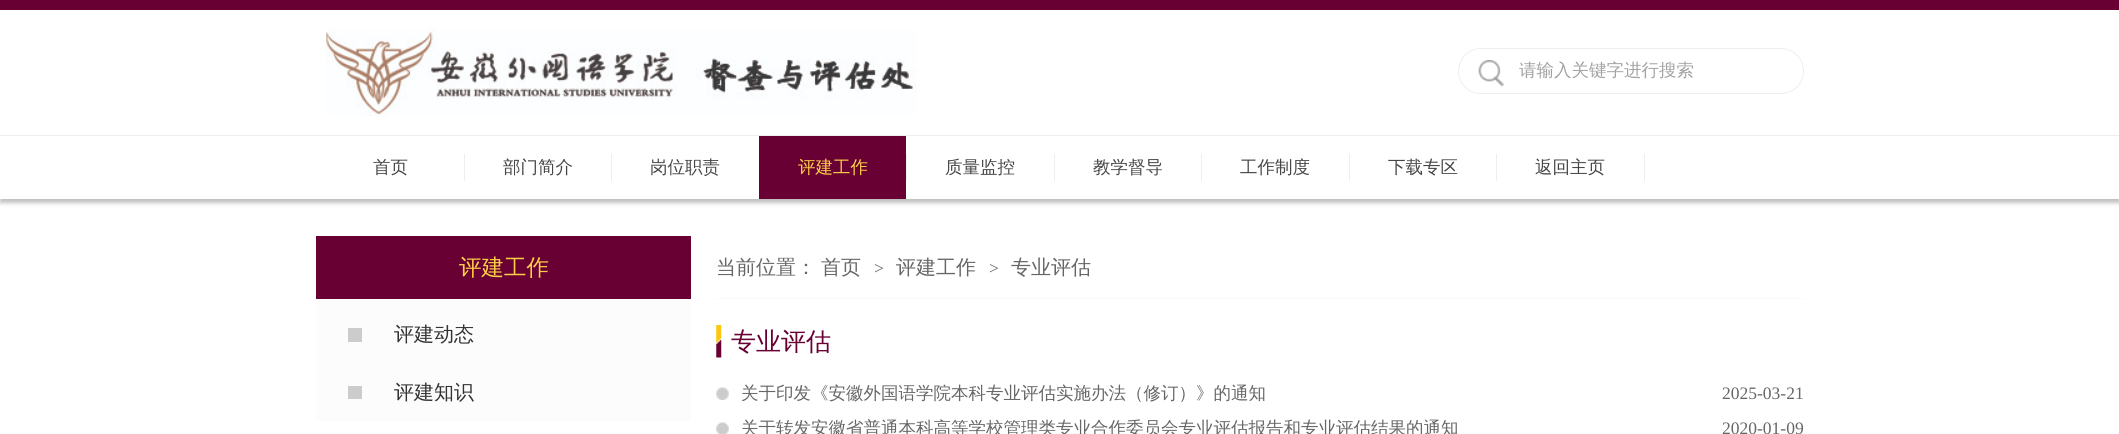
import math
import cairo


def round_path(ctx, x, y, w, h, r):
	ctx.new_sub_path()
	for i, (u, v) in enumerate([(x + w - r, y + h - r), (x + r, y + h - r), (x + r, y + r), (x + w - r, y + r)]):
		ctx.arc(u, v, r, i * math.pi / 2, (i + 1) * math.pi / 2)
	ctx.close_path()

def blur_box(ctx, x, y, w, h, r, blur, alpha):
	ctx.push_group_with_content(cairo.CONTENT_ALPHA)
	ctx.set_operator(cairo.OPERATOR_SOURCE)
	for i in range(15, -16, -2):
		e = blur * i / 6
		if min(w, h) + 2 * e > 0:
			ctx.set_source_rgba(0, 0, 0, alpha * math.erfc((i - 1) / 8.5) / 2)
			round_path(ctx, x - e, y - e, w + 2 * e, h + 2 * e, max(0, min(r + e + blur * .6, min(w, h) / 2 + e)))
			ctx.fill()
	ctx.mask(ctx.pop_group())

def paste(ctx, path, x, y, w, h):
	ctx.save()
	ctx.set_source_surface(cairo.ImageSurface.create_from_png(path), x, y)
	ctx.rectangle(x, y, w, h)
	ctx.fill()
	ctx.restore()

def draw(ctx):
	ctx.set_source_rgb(1, 1, 1)
	ctx.paint()
	ctx.set_source_rgb(0.408, 0, 0.204)
	ctx.rectangle(0, 0, 2119, 10)
	ctx.fill()
	paste(ctx, 'media/1.png', 326, 29, 591, 87)
	round_path(ctx, 1458.5, 48.5, 345, 45, 22.5)
	ctx.set_source_rgb(0.933, 0.933, 0.933)
	ctx.set_line_width(1)
	ctx.stroke()
	paste(ctx, 'media/2.png', 1478, 60, 26, 27)
	ctx.save()
	round_path(ctx, 1519, 51, 275, 39, 19.5)
	ctx.clip()
	ctx.select_font_face('WenQuanYi Zen Hei Medium')
	ctx.set_font_size(17.5)
	ctx.set_source_rgb(0.635, 0.635, 0.635)
	ctx.move_to(1519, 76)
	ctx.show_text('请输入关键字进行搜索')
	ctx.restore()
	ctx.save()
	ctx.set_fill_rule(cairo.FILL_RULE_EVEN_ODD)
	ctx.new_path()
	ctx.move_to(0, 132)
	ctx.line_to(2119, 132)
	ctx.line_to(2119, 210)
	ctx.line_to(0, 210)
	ctx.close_path()
	ctx.move_to(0, 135)
	ctx.line_to(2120, 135)
	ctx.line_to(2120, 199)
	ctx.line_to(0, 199)
	ctx.close_path()
	ctx.clip()
	ctx.set_source_rgb(0.753, 0.753, 0.753)
	blur_box(ctx, 0, 139, 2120, 64, 0, 2, 1)
	ctx.restore()
	ctx.rectangle(0, 135, 2119, 1)
	ctx.fill()
	ctx.rectangle(464, 154, 1, 27)
	ctx.fill()
	ctx.select_font_face('WenQuanYi Zen Hei Medium')
	ctx.set_font_size(17.5)
	ctx.set_source_rgb(0.275, 0.275, 0.275)
	ctx.move_to(373, 173)
	ctx.show_text('首页')
	ctx.set_source_rgb(0.933, 0.933, 0.933)
	ctx.rectangle(611, 154, 1, 27)
	ctx.fill()
	ctx.set_source_rgb(0.275, 0.275, 0.275)
	ctx.move_to(503, 173)
	ctx.show_text('部门简介')
	ctx.move_to(650, 173)
	ctx.show_text('岗位职责')
	ctx.set_source_rgb(0.408, 0, 0.204)
	ctx.rectangle(759, 136, 147, 63)
	ctx.fill()
	ctx.set_source_rgb(0.933, 0.933, 0.933)
	ctx.rectangle(906, 154, 1, 27)
	ctx.fill()
	ctx.set_source_rgb(1, 0.812, 0.275)
	ctx.move_to(798, 173)
	ctx.show_text('评建工作')
	ctx.set_source_rgb(0.933, 0.933, 0.933)
	ctx.rectangle(1054, 154, 1, 27)
	ctx.fill()
	ctx.set_source_rgb(0.275, 0.275, 0.275)
	ctx.move_to(945, 173)
	ctx.show_text('质量监控')
	ctx.set_source_rgb(0.933, 0.933, 0.933)
	ctx.rectangle(1201, 154, 1, 27)
	ctx.fill()
	ctx.set_source_rgb(0.275, 0.275, 0.275)
	ctx.move_to(1093, 173)
	ctx.show_text('教学督导')
	ctx.set_source_rgb(0.933, 0.933, 0.933)
	ctx.rectangle(1349, 154, 1, 27)
	ctx.fill()
	ctx.set_source_rgb(0.275, 0.275, 0.275)
	ctx.move_to(1240, 173)
	ctx.show_text('工作制度')
	ctx.set_source_rgb(0.933, 0.933, 0.933)
	ctx.rectangle(1496, 154, 1, 27)
	ctx.fill()
	ctx.set_source_rgb(0.275, 0.275, 0.275)
	ctx.move_to(1388, 173)
	ctx.show_text('下载专区')
	ctx.set_source_rgb(0.933, 0.933, 0.933)
	ctx.rectangle(1644, 154, 1, 27)
	ctx.fill()
	ctx.set_source_rgb(0.275, 0.275, 0.275)
	ctx.move_to(1535, 173)
	ctx.show_text('返回主页')
	ctx.set_source_rgb(0.408, 0, 0.204)
	ctx.rectangle(316, 236, 375, 63)
	ctx.fill()
	ctx.set_font_size(22.5)
	ctx.set_source_rgb(1, 0.812, 0.275)
	ctx.move_to(459, 275)
	ctx.show_text('评建工作')
	ctx.set_source_rgb(0.988, 0.988, 0.988)
	ctx.rectangle(316, 299, 375, 122)
	ctx.fill()
	ctx.set_source_rgb(0.8, 0.8, 0.8)
	ctx.rectangle(348, 328, 14, 14)
	ctx.fill()
	ctx.set_font_size(20)
	ctx.set_source_rgb(0.2, 0.2, 0.2)
	ctx.move_to(394, 341)
	ctx.show_text('评建动态')
	ctx.set_source_rgb(0.8, 0.8, 0.8)
	ctx.rectangle(348, 386, 14, 13)
	ctx.fill()
	ctx.set_source_rgb(0.2, 0.2, 0.2)
	ctx.move_to(394, 399)
	ctx.show_text('评建知识')
	ctx.set_source_rgb(0.98, 0.98, 0.98)
	ctx.rectangle(716, 298, 1088, 1)
	ctx.fill()
	ctx.set_source_rgb(0.4, 0.4, 0.4)
	ctx.move_to(716, 274)
	ctx.show_text('当前位置：')
	ctx.move_to(821, 274)
	ctx.show_text('首页')
	ctx.select_font_face('Liberation Serif')
	ctx.set_font_size(17.5)
	ctx.move_to(874, 274)
	ctx.show_text('>')
	ctx.select_font_face('WenQuanYi Zen Hei Medium')
	ctx.set_font_size(20)
	ctx.move_to(896, 274)
	ctx.show_text('评建工作')
	ctx.select_font_face('Liberation Serif')
	ctx.set_font_size(17.5)
	ctx.move_to(989, 274)
	ctx.show_text('>')
	ctx.select_font_face('WenQuanYi Zen Hei Medium')
	ctx.set_font_size(20)
	ctx.move_to(1011, 274)
	ctx.show_text('专业评估')
	paste(ctx, 'media/3.png', 716, 325, 6, 33)
	ctx.set_font_size(25)
	ctx.set_source_rgb(0.408, 0, 0.204)
	ctx.move_to(731, 350)
	ctx.show_text('专业评估')
	paste(ctx, 'media/4.png', 716, 387, 13, 13)
	ctx.set_font_size(17.5)
	ctx.set_source_rgb(0.4, 0.4, 0.4)
	ctx.move_to(741, 399)
	ctx.show_text('关于印发《安徽外国语学院本科专业评估实施办法（修订）》的通知')
	ctx.select_font_face('Liberation Serif')
	ctx.move_to(1722, 399)
	ctx.show_text('2025-03-21')
	paste(ctx, 'media/5.png', 716, 422, 13, 12)
	ctx.select_font_face('WenQuanYi Zen Hei Medium')
	ctx.move_to(741, 434)
	ctx.show_text('关于转发安徽省普通本科高等学校管理类专业合作委员会专业评估报告和专业评估结果的通知')
	ctx.select_font_face('Liberation Serif')
	ctx.move_to(1722, 434)
	ctx.show_text('2020-01-09')


surface = cairo.ImageSurface(cairo.FORMAT_RGB24, 2119, 434)
ctx = cairo.Context(surface)
options = cairo.FontOptions()
options.set_hint_metrics(cairo.HINT_METRICS_OFF)
options.set_hint_style(cairo.HINT_STYLE_NONE)
ctx.set_font_options(options)
ctx.set_miter_limit(4)
draw(ctx)
surface.write_to_png('image.png')
